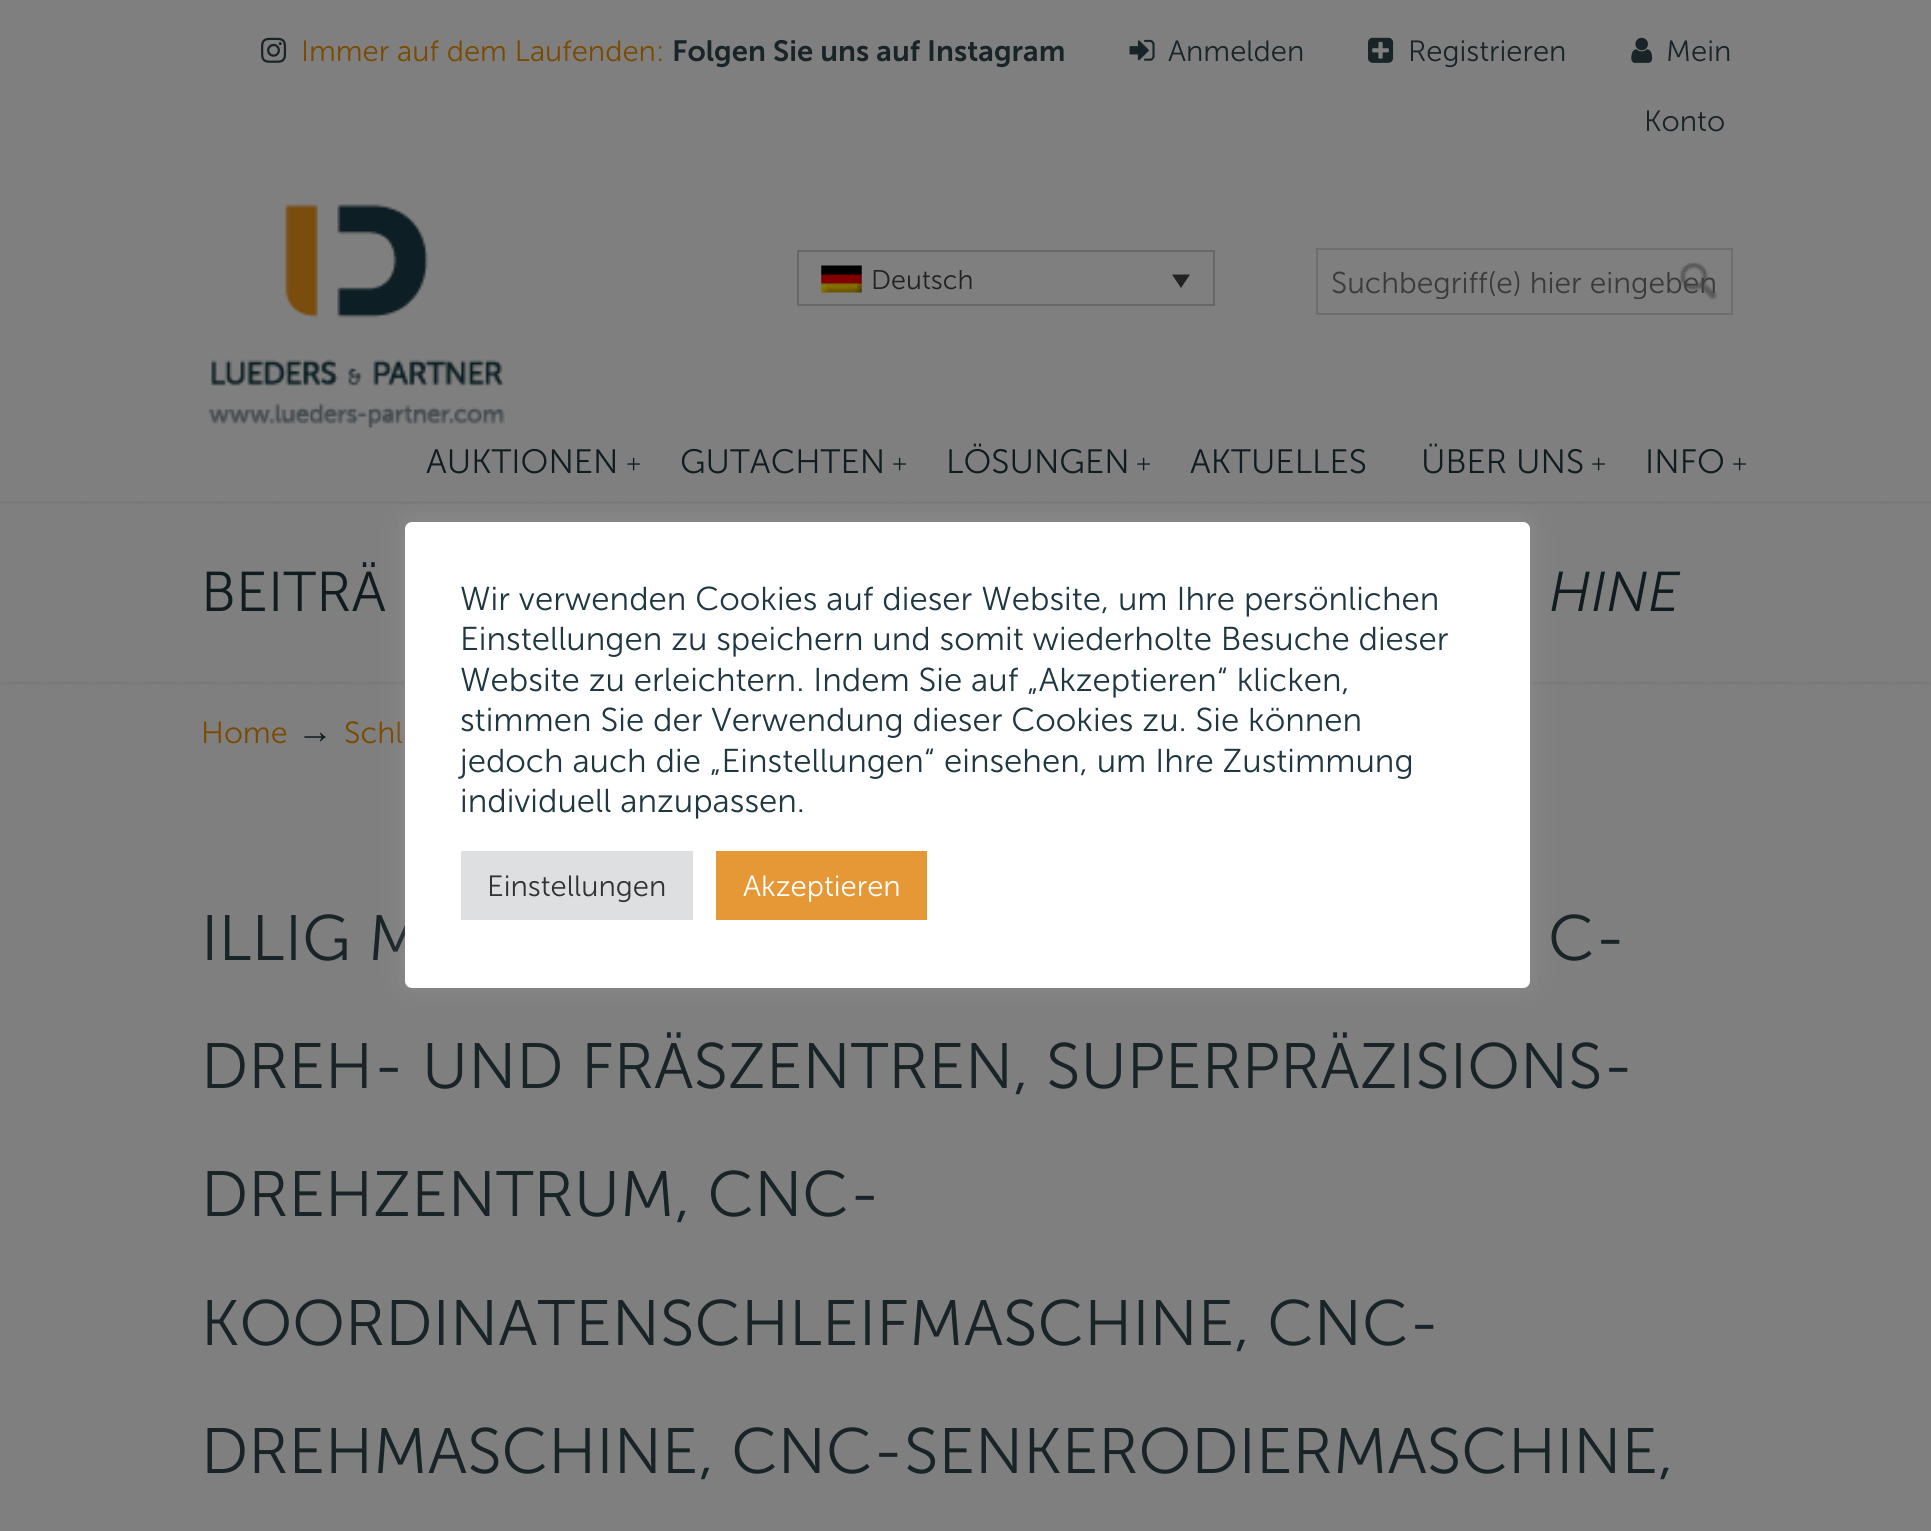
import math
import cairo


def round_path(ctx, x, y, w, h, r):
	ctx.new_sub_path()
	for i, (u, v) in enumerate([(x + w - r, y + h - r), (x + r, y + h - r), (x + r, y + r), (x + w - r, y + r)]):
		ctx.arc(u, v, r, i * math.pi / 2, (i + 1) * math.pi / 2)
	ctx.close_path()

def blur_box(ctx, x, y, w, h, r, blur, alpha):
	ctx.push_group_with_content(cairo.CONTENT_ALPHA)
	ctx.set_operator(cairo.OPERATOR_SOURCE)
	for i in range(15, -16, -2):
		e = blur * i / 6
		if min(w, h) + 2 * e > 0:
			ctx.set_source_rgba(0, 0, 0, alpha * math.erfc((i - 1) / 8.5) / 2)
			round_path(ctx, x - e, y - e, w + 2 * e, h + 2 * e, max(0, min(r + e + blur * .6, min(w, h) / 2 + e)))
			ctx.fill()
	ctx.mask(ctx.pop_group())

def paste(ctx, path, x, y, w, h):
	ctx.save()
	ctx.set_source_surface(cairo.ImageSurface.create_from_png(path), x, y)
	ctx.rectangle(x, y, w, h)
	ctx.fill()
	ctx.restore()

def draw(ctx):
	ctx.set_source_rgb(0.498, 0.498, 0.498)
	ctx.paint()
	paste(ctx, 'media/1.png', 261, 37, 26, 26)
	ctx.select_font_face('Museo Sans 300 Light')
	ctx.set_font_size(29.25)
	ctx.set_source_rgb(0.475, 0.29, 0)
	ctx.move_to(301, 61)
	ctx.show_text('Immer auf dem Laufenden:')
	ctx.select_font_face('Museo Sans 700 SemiBold')
	ctx.set_source_rgb(0.094, 0.141, 0.157)
	ctx.move_to(672, 61)
	ctx.show_text('Folgen Sie uns auf Instagram')
	paste(ctx, 'media/2.png', 1129, 39, 26, 22)
	ctx.select_font_face('Museo Sans 300 Light')
	ctx.move_to(1168, 61)
	ctx.show_text('Anmelden')
	paste(ctx, 'media/3.png', 1368, 37, 26, 26)
	ctx.move_to(1408, 61)
	ctx.show_text('Registrieren')
	paste(ctx, 'media/4.png', 1631, 37, 22, 26)
	ctx.move_to(1666, 61)
	ctx.show_text('Mein')
	ctx.move_to(1644, 131)
	ctx.show_text('Konto')
	paste(ctx, 'media/5.png', 208, 204, 297, 224)
	ctx.rectangle(798, 251, 416, 54)
	ctx.set_source_rgb(0.404, 0.404, 0.404)
	ctx.stroke()
	paste(ctx, 'media/6.png', 821, 265, 41, 28)
	ctx.set_font_size(27)
	ctx.set_source_rgb(0.133, 0.133, 0.133)
	ctx.move_to(871, 289)
	ctx.show_text('Deutsch')
	ctx.new_path()
	ctx.move_to(1172, 274.5)
	ctx.line_to(1190, 274.5)
	ctx.line_to(1181, 288)
	ctx.close_path()
	ctx.fill()
	ctx.rectangle(1317, 249, 415, 65)
	ctx.set_source_rgb(0.435, 0.427, 0.427)
	ctx.stroke()
	ctx.save()
	ctx.rectangle(1332, 263, 385, 36)
	ctx.clip()
	ctx.set_font_size(30)
	ctx.set_source_rgb(0.231, 0.231, 0.231)
	ctx.move_to(1331, 293)
	ctx.show_text('Suchbegriff(e) hier eingeben')
	ctx.restore()
	paste(ctx, 'media/7.png', 1680, 262, 38, 38)
	ctx.set_font_size(33.75)
	ctx.set_source_rgb(0.063, 0.11, 0.125)
	ctx.move_to(426, 473)
	ctx.show_text('AUKTIONEN')
	ctx.select_font_face('Liberation Serif')
	ctx.set_font_size(27)
	ctx.move_to(626, 473)
	ctx.show_text('+')
	ctx.select_font_face('Museo Sans 300 Light')
	ctx.set_font_size(33.75)
	ctx.move_to(680, 473)
	ctx.show_text('GUTACHTEN')
	ctx.select_font_face('Liberation Serif')
	ctx.set_font_size(27)
	ctx.move_to(892, 473)
	ctx.show_text('+')
	ctx.select_font_face('Museo Sans 300 Light')
	ctx.set_font_size(33.75)
	ctx.move_to(946, 473)
	ctx.show_text('LÖSUNGEN')
	ctx.select_font_face('Liberation Serif')
	ctx.set_font_size(27)
	ctx.move_to(1136, 473)
	ctx.show_text('+')
	ctx.select_font_face('Museo Sans 300 Light')
	ctx.set_font_size(33.75)
	ctx.move_to(1190, 473)
	ctx.show_text('AKTUELLES')
	ctx.move_to(1421, 473)
	ctx.show_text('ÜBER UNS')
	ctx.select_font_face('Liberation Serif')
	ctx.set_font_size(27)
	ctx.move_to(1591, 473)
	ctx.show_text('+')
	ctx.select_font_face('Museo Sans 300 Light')
	ctx.set_font_size(33.75)
	ctx.move_to(1645, 473)
	ctx.show_text('INFO')
	ctx.select_font_face('Liberation Serif')
	ctx.set_font_size(27)
	ctx.move_to(1732, 473)
	ctx.show_text('+')
	paste(ctx, 'media/8.png', 0, 501, 1931, 3)
	ctx.select_font_face('Museo Sans 300 Light')
	ctx.set_font_size(56)
	ctx.move_to(201, 611)
	ctx.show_text('BEITRÄ')
	ctx.select_font_face('Museo Sans 300 Light', cairo.FONT_SLANT_ITALIC)
	ctx.move_to(1549, 611)
	ctx.show_text('HINE')
	paste(ctx, 'media/9.png', 0, 681, 1931, 4)
	ctx.select_font_face('Museo Sans 300 Light')
	ctx.set_font_size(30.5)
	ctx.set_source_rgb(0.475, 0.29, 0)
	ctx.move_to(201, 743)
	ctx.show_text('Home')
	ctx.select_font_face('Liberation Sans')
	ctx.set_font_size(36)
	ctx.set_source_rgb(0.063, 0.11, 0.125)
	ctx.move_to(297, 743)
	ctx.show_text('→')
	ctx.select_font_face('Museo Sans 300 Light')
	ctx.set_font_size(30.5)
	ctx.set_source_rgb(0.475, 0.29, 0)
	ctx.move_to(344, 743)
	ctx.show_text('Schl')
	ctx.set_font_size(64)
	ctx.set_source_rgb(0.094, 0.141, 0.157)
	for x, y, s in [
		(201, 960, 'ILLIG M'),
		(1548, 960, 'C-'),
		(201, 1088, 'DREH- UND FRÄSZENTREN, SUPERPRÄZISIONS-'),
		(201, 1216, 'DREHZENTRUM, CNC-'),
		(201, 1345, 'KOORDINATENSCHLEIFMASCHINE, CNC-'),
		(201, 1473, 'DREHMASCHINE, CNC-SENKERODIERMASCHINE,'),
	]:
		ctx.move_to(x, y)
		ctx.show_text(s)
	ctx.set_source_rgb(0.675, 0.671, 0.671)
	blur_box(ctx, 405, 520, 1125, 466, 7, 11, 0.3)
	ctx.set_source_rgb(1, 1, 1)
	round_path(ctx, 405, 522, 1125, 466, 7)
	ctx.fill()
	ctx.set_font_size(33)
	ctx.set_source_rgb(0.122, 0.216, 0.251)
	for x, y, s in [
		(460, 610, 'Wir verwenden Cookies auf dieser Website, um Ihre persönlichen'),
		(460, 650, 'Einstellungen zu speichern und somit wiederholte Besuche dieser'),
		(460, 691, 'Website zu erleichtern. Indem Sie auf „Akzeptieren“ klicken,'),
		(460, 731, 'stimmen Sie der Verwendung dieser Cookies zu. Sie können'),
		(460, 772, 'jedoch auch die „Einstellungen“'),
		(944, 772, 'einsehen, um Ihre Zustimmung'),
		(460, 812, 'individuell anzupassen.'),
	]:
		ctx.move_to(x, y)
		ctx.show_text(s)
	ctx.set_source_rgb(0.871, 0.875, 0.878)
	ctx.rectangle(461, 851, 232, 69)
	ctx.fill()
	ctx.set_font_size(29.25)
	ctx.set_source_rgb(0.2, 0.2, 0.2)
	ctx.move_to(487, 896)
	ctx.show_text('Einstellungen')
	ctx.set_source_rgb(0.898, 0.596, 0.208)
	ctx.rectangle(716, 851, 211, 69)
	ctx.fill()
	ctx.set_source_rgb(1, 1, 1)
	ctx.move_to(743, 896)
	ctx.show_text('Akzeptieren')


surface = cairo.ImageSurface(cairo.FORMAT_RGB24, 1931, 1531)
ctx = cairo.Context(surface)
options = cairo.FontOptions()
options.set_hint_metrics(cairo.HINT_METRICS_OFF)
options.set_hint_style(cairo.HINT_STYLE_NONE)
ctx.set_font_options(options)
ctx.set_miter_limit(4)
draw(ctx)
surface.write_to_png('image.png')
